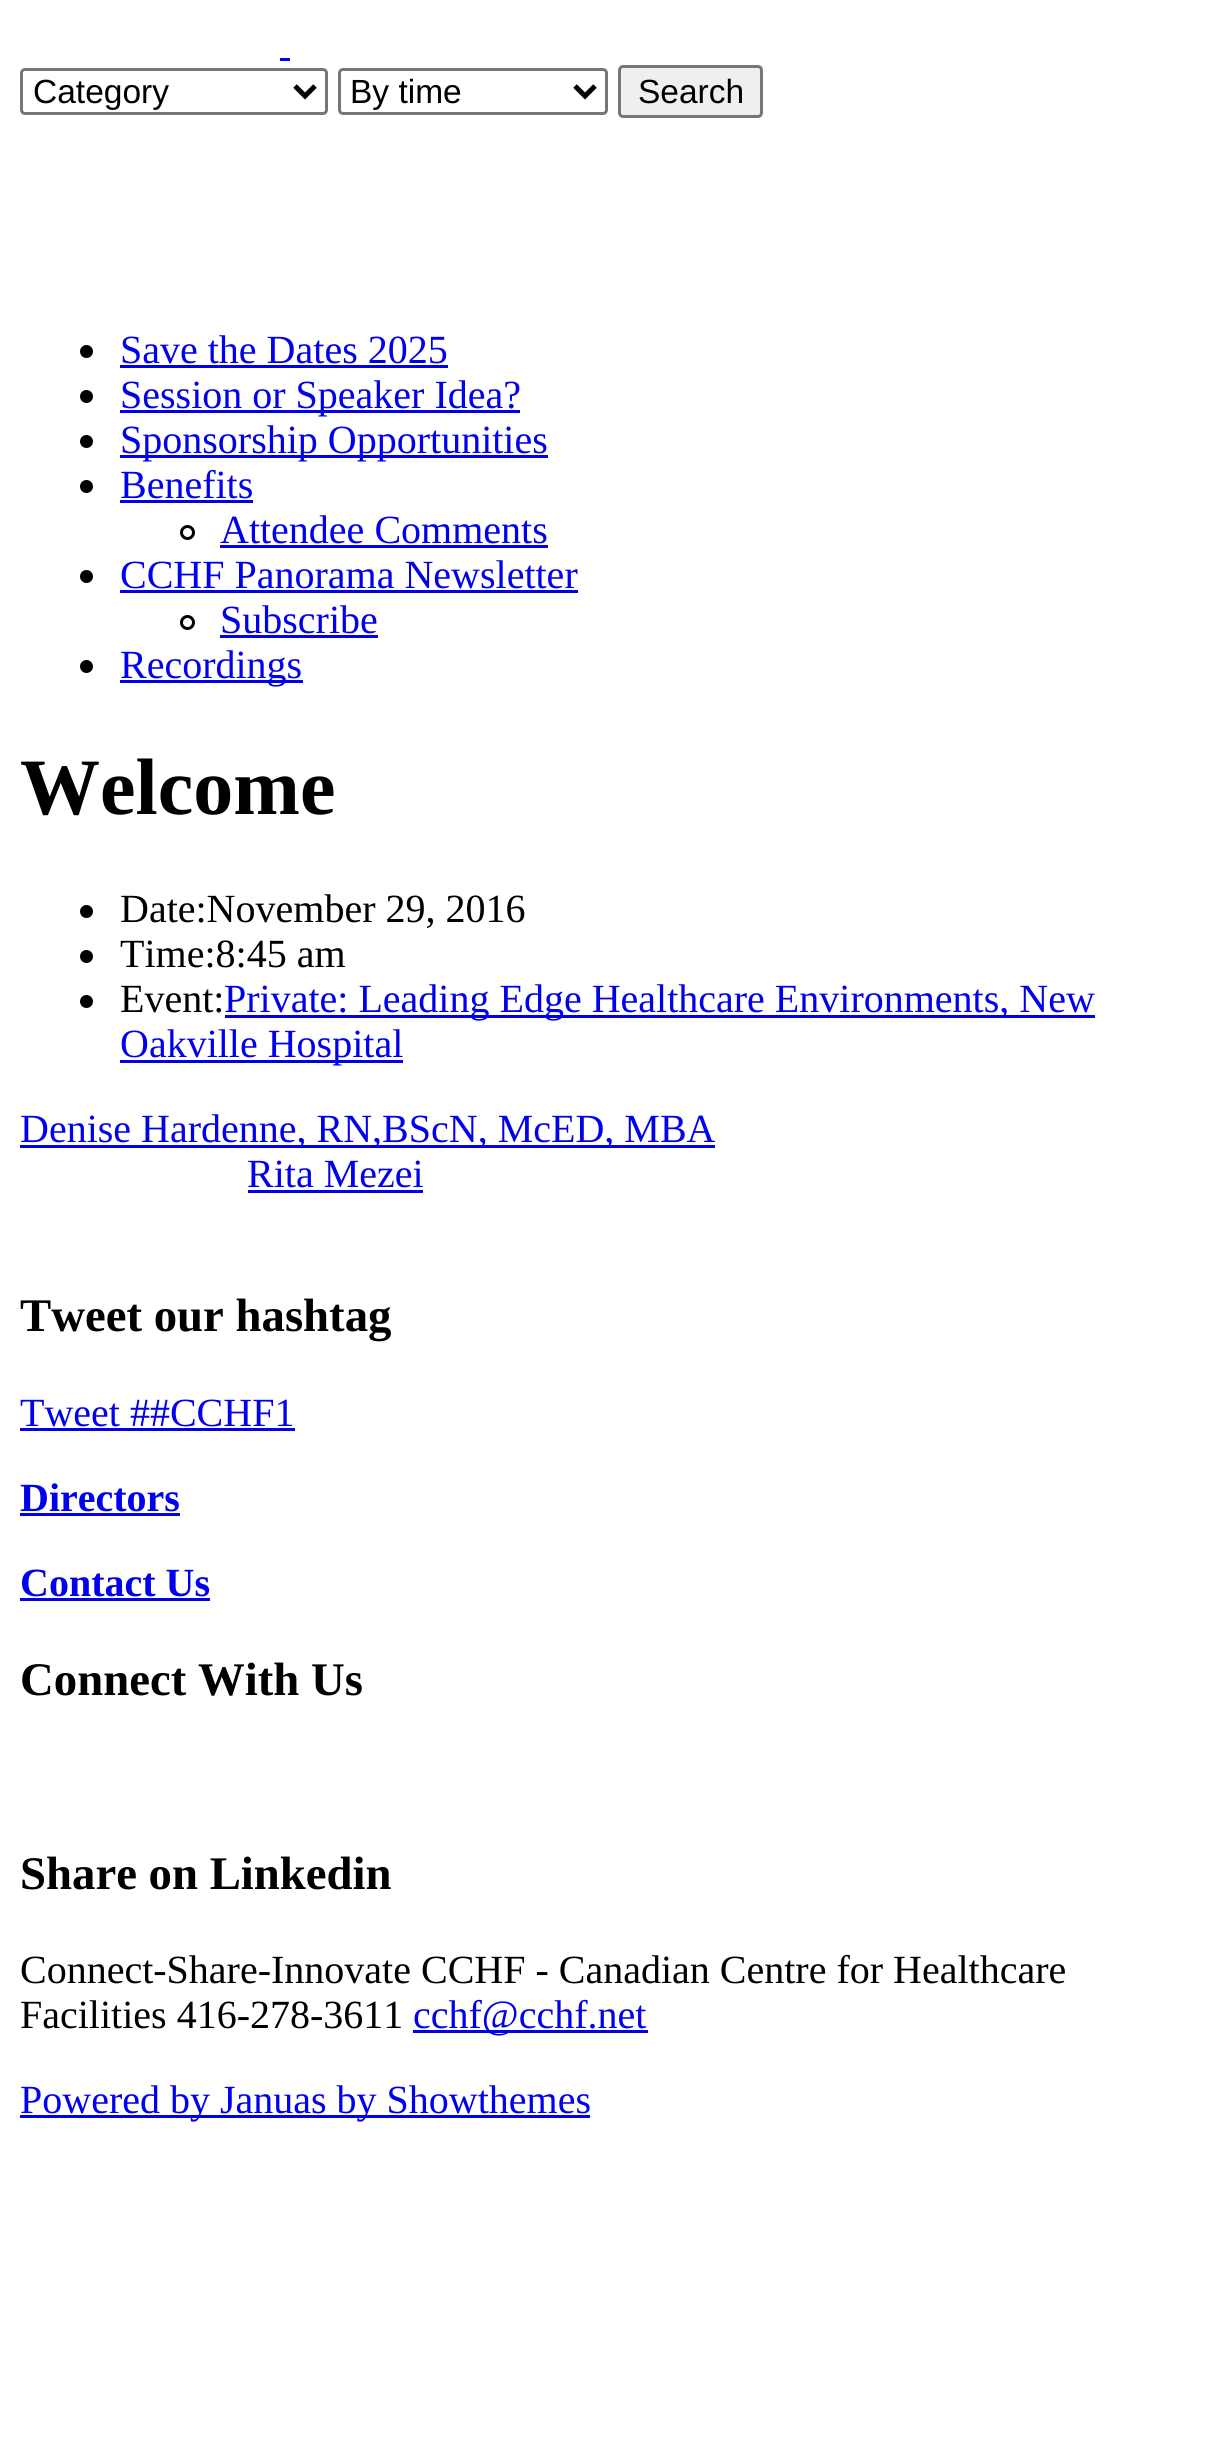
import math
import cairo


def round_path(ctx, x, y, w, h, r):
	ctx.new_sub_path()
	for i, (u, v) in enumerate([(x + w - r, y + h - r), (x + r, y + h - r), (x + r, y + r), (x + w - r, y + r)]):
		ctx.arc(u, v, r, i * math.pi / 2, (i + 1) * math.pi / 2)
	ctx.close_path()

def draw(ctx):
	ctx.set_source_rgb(1, 1, 1)
	ctx.paint()
	ctx.set_source_rgb(0, 0, 0.933)
	ctx.rectangle(280, 58, 10, 3)
	ctx.fill()
	round_path(ctx, 21.5, 69.5, 305, 44, 3.5)
	ctx.set_source_rgb(0.463, 0.463, 0.463)
	ctx.set_line_width(3)
	ctx.stroke()
	ctx.new_path()
	ctx.move_to(295, 86)
	ctx.line_to(305, 96)
	ctx.line_to(315, 86)
	ctx.set_source_rgb(0, 0, 0)
	ctx.set_line_width(5)
	ctx.stroke()
	ctx.select_font_face('Liberation Sans')
	ctx.set_font_size(33.5)
	ctx.move_to(33, 103)
	ctx.show_text('Category')
	round_path(ctx, 339.5, 69.5, 267, 44, 3.5)
	ctx.set_source_rgb(0.463, 0.463, 0.463)
	ctx.set_line_width(3)
	ctx.stroke()
	ctx.new_path()
	ctx.move_to(575, 86)
	ctx.line_to(585, 96)
	ctx.line_to(595, 86)
	ctx.set_source_rgb(0, 0, 0)
	ctx.set_line_width(5)
	ctx.stroke()
	ctx.move_to(350, 103)
	ctx.show_text('By time')
	ctx.set_source_rgb(0.937, 0.937, 0.937)
	round_path(ctx, 619.5, 66.5, 142, 50, 3.5)
	ctx.fill_preserve()
	ctx.set_source_rgb(0.463, 0.463, 0.463)
	ctx.set_line_width(3)
	ctx.stroke()
	ctx.set_source_rgb(0, 0, 0)
	ctx.move_to(638, 103)
	ctx.show_text('Search')
	ctx.new_path()
	ctx.arc(86.5, 351.5, 6.5, 0, 2 * math.pi)
	ctx.fill()
	ctx.select_font_face('Liberation Serif')
	ctx.set_font_size(40)
	ctx.set_source_rgb(0, 0, 0.933)
	ctx.move_to(120, 363)
	ctx.show_text('Save the Dates 2025')
	ctx.rectangle(120, 365, 328, 3)
	ctx.fill()
	ctx.set_source_rgb(0, 0, 0)
	ctx.arc(86.5, 396.5, 6.5, 0, 2 * math.pi)
	ctx.fill()
	ctx.set_source_rgb(0, 0, 0.933)
	ctx.rectangle(120, 410, 400, 3)
	ctx.fill()
	ctx.move_to(120, 408)
	ctx.show_text('Session or Speaker Idea?')
	ctx.set_source_rgb(0, 0, 0)
	ctx.new_path()
	ctx.arc(86.5, 441.5, 6.5, 0, 2 * math.pi)
	ctx.fill()
	ctx.set_source_rgb(0, 0, 0.933)
	ctx.rectangle(120, 455, 428, 3)
	ctx.fill()
	ctx.move_to(120, 453)
	ctx.show_text('Sponsorship Opportunities')
	ctx.set_source_rgb(0, 0, 0)
	ctx.new_path()
	ctx.arc(86.5, 486.5, 6.5, 0, 2 * math.pi)
	ctx.fill()
	ctx.set_source_rgb(0, 0, 0.933)
	ctx.move_to(120, 498)
	ctx.show_text('Benefits')
	ctx.rectangle(120, 500, 133, 3)
	ctx.fill()
	ctx.arc(187.5, 532.5, 6, 0, 2 * math.pi)
	ctx.set_source_rgb(0, 0, 0)
	ctx.stroke()
	ctx.set_source_rgb(0, 0, 0.933)
	ctx.move_to(220, 543)
	ctx.show_text('Attendee Comments')
	ctx.rectangle(220, 545, 328, 3)
	ctx.fill()
	ctx.set_source_rgb(0, 0, 0)
	ctx.arc(86.5, 576.5, 6.5, 0, 2 * math.pi)
	ctx.fill()
	ctx.set_source_rgb(0, 0, 0.933)
	ctx.move_to(120, 588)
	ctx.show_text('CCHF Panorama Newsletter')
	ctx.rectangle(120, 590, 458, 3)
	ctx.fill()
	ctx.arc(187.5, 622.5, 6, 0, 2 * math.pi)
	ctx.set_source_rgb(0, 0, 0)
	ctx.stroke()
	ctx.set_source_rgb(0, 0, 0.933)
	ctx.move_to(220, 633)
	ctx.show_text('Subscribe')
	ctx.rectangle(220, 635, 158, 3)
	ctx.fill()
	ctx.set_source_rgb(0, 0, 0)
	ctx.arc(86.5, 666.5, 6.5, 0, 2 * math.pi)
	ctx.fill()
	ctx.set_source_rgb(0, 0, 0.933)
	ctx.rectangle(120, 680, 183, 3)
	ctx.fill()
	ctx.move_to(120, 678)
	ctx.show_text('Recordings')
	ctx.select_font_face('Liberation Serif', cairo.FONT_SLANT_NORMAL, cairo.FONT_WEIGHT_BOLD)
	ctx.set_font_size(80)
	ctx.set_source_rgb(0, 0, 0)
	ctx.move_to(20, 814)
	ctx.show_text('Welcome')
	ctx.new_path()
	ctx.arc(86.5, 911.5, 6.5, 0, 2 * math.pi)
	ctx.fill()
	ctx.select_font_face('Liberation Serif')
	ctx.set_font_size(40)
	ctx.move_to(120, 922)
	ctx.show_text('Date:November 29, 2016')
	ctx.new_path()
	ctx.arc(86.5, 956.5, 6.5, 0, 2 * math.pi)
	ctx.fill()
	ctx.move_to(120, 967)
	ctx.show_text('Time:8:45 am')
	ctx.new_path()
	ctx.arc(86.5, 1001.5, 6.5, 0, 2 * math.pi)
	ctx.fill()
	ctx.move_to(120, 1012)
	ctx.show_text('Event:')
	ctx.set_source_rgb(0, 0, 0.933)
	ctx.rectangle(225, 1015, 870, 3)
	ctx.fill()
	ctx.move_to(224, 1012)
	ctx.show_text('Private: Leading Edge Healthcare Environments, New')
	ctx.rectangle(120, 1060, 283, 3)
	ctx.fill()
	ctx.move_to(120, 1057)
	ctx.show_text('Oakville Hospital')
	ctx.rectangle(20, 1145, 695, 3)
	ctx.fill()
	ctx.move_to(20, 1142)
	ctx.show_text('Denise Hardenne, RN,BScN, McED, MBA')
	ctx.move_to(247, 1187)
	ctx.show_text('Rita Mezei')
	ctx.rectangle(248, 1190, 175, 3)
	ctx.fill()
	ctx.select_font_face('Liberation Serif', cairo.FONT_SLANT_NORMAL, cairo.FONT_WEIGHT_BOLD)
	ctx.set_font_size(46.75)
	ctx.set_source_rgb(0, 0, 0)
	ctx.move_to(20, 1331)
	ctx.show_text('Tweet our hashtag')
	ctx.select_font_face('Liberation Serif')
	ctx.set_font_size(40)
	ctx.set_source_rgb(0, 0, 0.933)
	ctx.move_to(20, 1426)
	ctx.show_text('Tweet ##CCHF1')
	ctx.rectangle(20, 1428, 275, 3)
	ctx.fill()
	ctx.select_font_face('Liberation Serif', cairo.FONT_SLANT_NORMAL, cairo.FONT_WEIGHT_BOLD)
	ctx.move_to(20, 1511)
	ctx.show_text('Directors')
	ctx.rectangle(20, 1513, 160, 3)
	ctx.fill()
	ctx.move_to(20, 1596)
	ctx.show_text('Contact Us')
	ctx.rectangle(20, 1598, 190, 3)
	ctx.fill()
	ctx.set_font_size(46.75)
	ctx.set_source_rgb(0, 0, 0)
	ctx.move_to(20, 1695)
	ctx.show_text('Connect With Us')
	ctx.move_to(20, 1889)
	ctx.show_text('Share on Linkedin')
	ctx.select_font_face('Liberation Serif')
	ctx.set_font_size(40)
	ctx.move_to(20, 1983)
	ctx.show_text('Connect-Share-Innovate CCHF - Canadian Centre for Healthcare')
	ctx.move_to(20, 2028)
	ctx.show_text('Facilities 416-278-3611')
	ctx.set_source_rgb(0, 0, 0.933)
	ctx.rectangle(413, 2030, 235, 3)
	ctx.fill()
	ctx.move_to(413, 2028)
	ctx.show_text('cchf@cchf.net')
	ctx.rectangle(20, 2115, 570, 3)
	ctx.fill()
	ctx.move_to(20, 2113)
	ctx.show_text('Powered by Januas by Showthemes')


surface = cairo.ImageSurface(cairo.FORMAT_RGB24, 1224, 2448)
ctx = cairo.Context(surface)
options = cairo.FontOptions()
options.set_hint_metrics(cairo.HINT_METRICS_OFF)
options.set_hint_style(cairo.HINT_STYLE_NONE)
ctx.set_font_options(options)
ctx.set_miter_limit(4)
draw(ctx)
surface.write_to_png('image.png')
